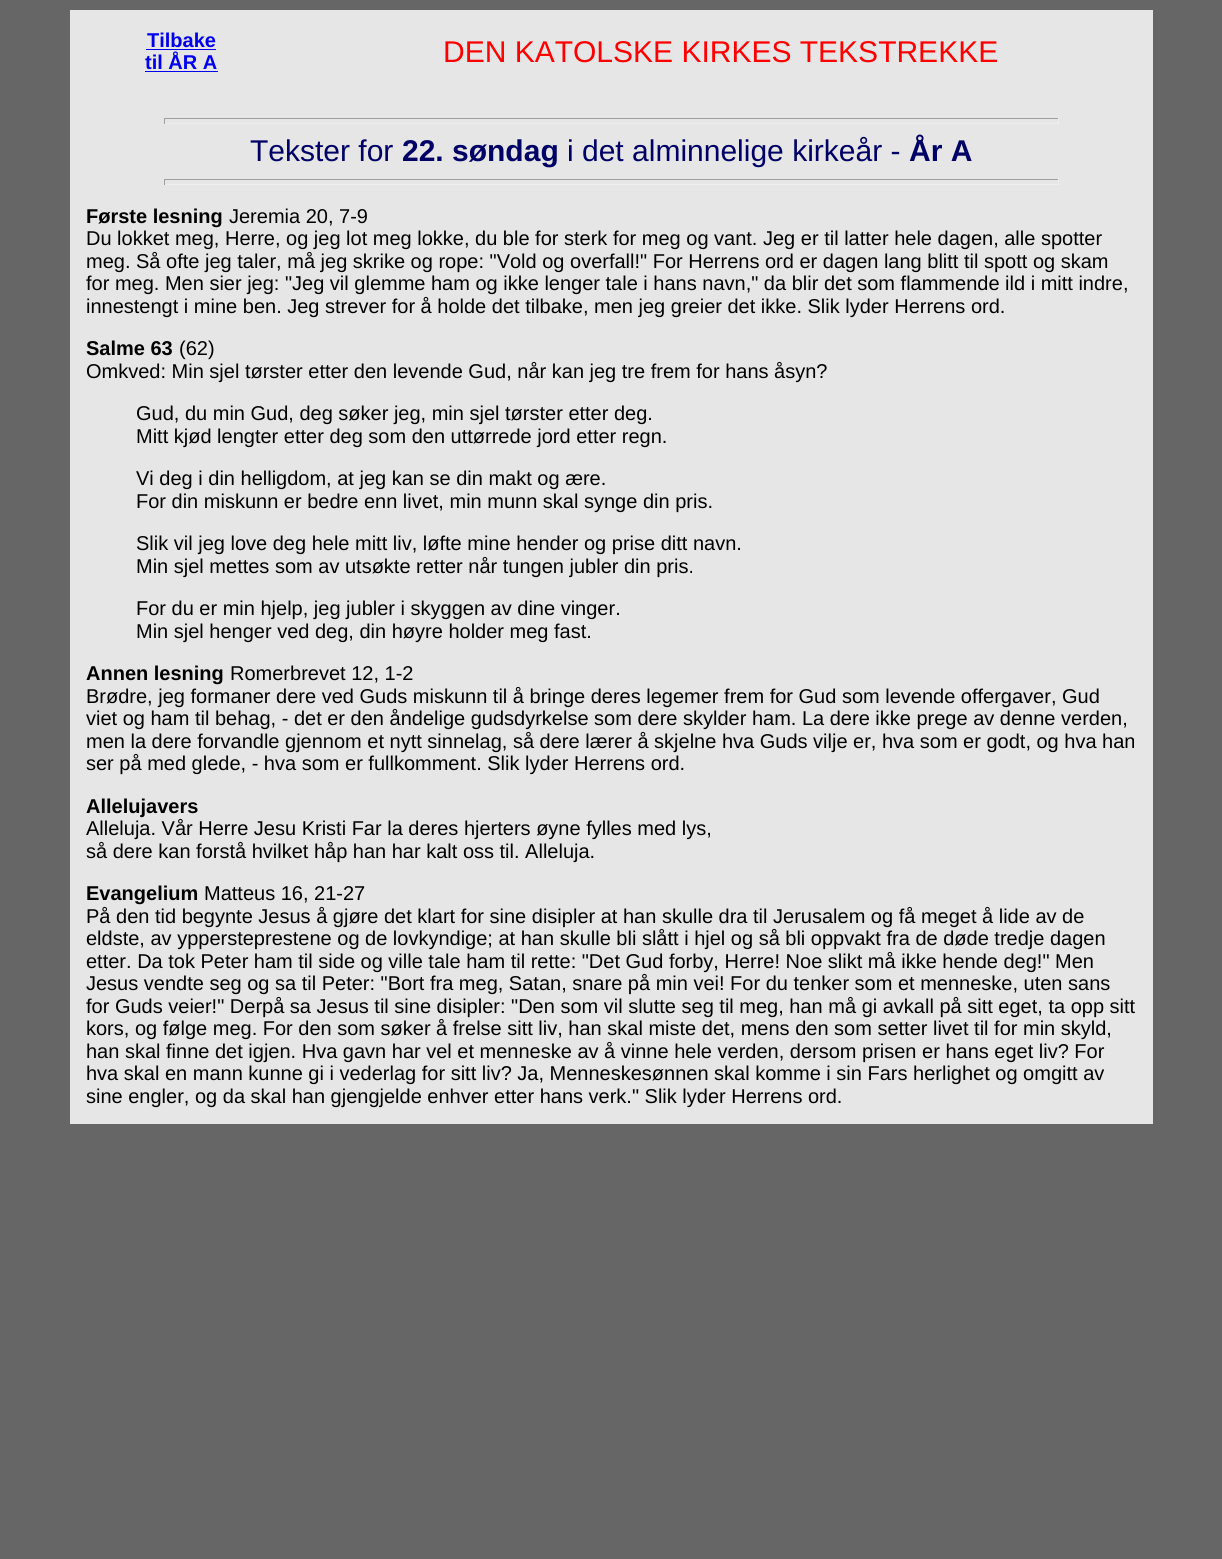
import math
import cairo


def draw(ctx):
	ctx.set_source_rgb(0.4, 0.4, 0.4)
	ctx.paint()
	ctx.set_source_rgb(0.902, 0.902, 0.902)
	ctx.rectangle(70, 10, 1083, 1114)
	ctx.fill()
	ctx.select_font_face('Liberation Sans', cairo.FONT_SLANT_NORMAL, cairo.FONT_WEIGHT_BOLD)
	ctx.set_font_size(20)
	ctx.set_source_rgb(0, 0, 0.933)
	ctx.move_to(147, 47)
	ctx.show_text('Tilbake')
	ctx.rectangle(146, 49, 70, 1)
	ctx.fill()
	ctx.move_to(145, 69)
	ctx.show_text('til ÅR A')
	ctx.rectangle(145, 71, 73, 1)
	ctx.fill()
	ctx.select_font_face('Liberation Sans')
	ctx.set_font_size(30)
	ctx.set_source_rgb(1, 0, 0)
	ctx.move_to(443, 62)
	ctx.show_text('DEN KATOLSKE KIRKES TEKSTREKKE')
	ctx.set_source_rgb(0.624, 0.624, 0.624)
	ctx.rectangle(164, 118, 895, 1)
	ctx.fill()
	ctx.set_source_rgb(0.933, 0.933, 0.933)
	ctx.rectangle(1058, 118, 1, 6)
	ctx.rectangle(164, 123, 895, 1)
	ctx.fill()
	ctx.set_source_rgb(0.624, 0.624, 0.624)
	ctx.rectangle(164, 118, 1, 6)
	ctx.fill()
	ctx.set_source_rgb(0, 0, 0.4)
	ctx.move_to(250, 161)
	ctx.show_text('Tekster for')
	ctx.select_font_face('Liberation Sans', cairo.FONT_SLANT_NORMAL, cairo.FONT_WEIGHT_BOLD)
	ctx.move_to(402, 161)
	ctx.show_text('22. søndag')
	ctx.select_font_face('Liberation Sans')
	ctx.move_to(567, 161)
	ctx.show_text('i det alminnelige kirkeår -')
	ctx.select_font_face('Liberation Sans', cairo.FONT_SLANT_NORMAL, cairo.FONT_WEIGHT_BOLD)
	ctx.move_to(909, 161)
	ctx.show_text('År A')
	ctx.set_source_rgb(0.624, 0.624, 0.624)
	ctx.rectangle(164, 179, 895, 1)
	ctx.fill()
	ctx.set_source_rgb(0.933, 0.933, 0.933)
	ctx.rectangle(1058, 179, 1, 6)
	ctx.rectangle(164, 184, 895, 1)
	ctx.fill()
	ctx.set_source_rgb(0.624, 0.624, 0.624)
	ctx.rectangle(164, 179, 1, 6)
	ctx.fill()
	ctx.set_font_size(20)
	ctx.set_source_rgb(0, 0, 0)
	ctx.move_to(86, 223)
	ctx.show_text('Første lesning')
	ctx.select_font_face('Liberation Sans')
	for x, y, s in [
		(229, 223, 'Jeremia 20, 7-9'),
		(86, 245, 'Du lokket meg, Herre, og jeg lot meg lokke, du ble for sterk for meg og vant. Jeg er til latter hele dagen, alle spotter'),
		(86, 268, 'meg. Så ofte jeg taler, må jeg skrike og rope: "Vold og overfall!" For Herrens ord er dagen lang blitt til spott og skam'),
		(86, 290, 'for meg. Men sier jeg: "Jeg vil glemme ham og ikke lenger tale i hans navn," da blir det som flammende ild i mitt indre,'),
		(86, 313, 'innestengt i mine ben. Jeg strever for å holde det tilbake, men jeg greier det ikke. Slik lyder Herrens ord.'),
	]:
		ctx.move_to(x, y)
		ctx.show_text(s)
	ctx.select_font_face('Liberation Sans', cairo.FONT_SLANT_NORMAL, cairo.FONT_WEIGHT_BOLD)
	ctx.move_to(86, 355)
	ctx.show_text('Salme 63')
	ctx.select_font_face('Liberation Sans')
	for x, y, s in [
		(179, 355, '(62)'),
		(86, 378, 'Omkved: Min sjel tørster etter den levende Gud, når kan jeg tre frem for hans åsyn?'),
		(136, 420, 'Gud, du min Gud, deg søker jeg, min sjel tørster etter deg.'),
		(136, 443, 'Mitt kjød lengter etter deg som den uttørrede jord etter regn.'),
		(136, 485, 'Vi deg i din helligdom, at jeg kan se din makt og ære.'),
		(136, 508, 'For din miskunn er bedre enn livet, min munn skal synge din pris.'),
		(136, 550, 'Slik vil jeg love deg hele mitt liv, løfte mine hender og prise ditt navn.'),
		(136, 573, 'Min sjel mettes som av utsøkte retter når tungen jubler din pris.'),
		(136, 615, 'For du er min hjelp, jeg jubler i skyggen av dine vinger.'),
		(136, 638, 'Min sjel henger ved deg, din høyre holder meg fast.'),
	]:
		ctx.move_to(x, y)
		ctx.show_text(s)
	ctx.select_font_face('Liberation Sans', cairo.FONT_SLANT_NORMAL, cairo.FONT_WEIGHT_BOLD)
	ctx.move_to(86, 680)
	ctx.show_text('Annen lesning')
	ctx.select_font_face('Liberation Sans')
	for x, y, s in [
		(230, 680, 'Romerbrevet 12, 1-2'),
		(86, 703, 'Brødre, jeg formaner dere ved Guds miskunn til å bringe deres legemer frem for Gud som levende offergaver, Gud'),
		(86, 725, 'viet og ham til behag, - det er den åndelige gudsdyrkelse som dere skylder ham. La dere ikke prege av denne verden,'),
		(86, 748, 'men la dere forvandle gjennom et nytt sinnelag, så dere lærer å skjelne hva Guds vilje er, hva som er godt, og hva han'),
		(86, 770, 'ser på med glede, - hva som er fullkomment. Slik lyder Herrens ord.'),
	]:
		ctx.move_to(x, y)
		ctx.show_text(s)
	ctx.select_font_face('Liberation Sans', cairo.FONT_SLANT_NORMAL, cairo.FONT_WEIGHT_BOLD)
	ctx.move_to(86, 813)
	ctx.show_text('Allelujavers')
	ctx.select_font_face('Liberation Sans')
	ctx.move_to(86, 835)
	ctx.show_text('Alleluja. Vår Herre Jesu Kristi Far la deres hjerters øyne fylles med lys,')
	ctx.move_to(86, 858)
	ctx.show_text('så dere kan forstå hvilket håp han har kalt oss til. Alleluja.')
	ctx.select_font_face('Liberation Sans', cairo.FONT_SLANT_NORMAL, cairo.FONT_WEIGHT_BOLD)
	ctx.move_to(86, 900)
	ctx.show_text('Evangelium')
	ctx.select_font_face('Liberation Sans')
	for x, y, s in [
		(204, 900, 'Matteus 16, 21-27'),
		(86, 923, 'På den tid begynte Jesus å gjøre det klart for sine disipler at han skulle dra til Jerusalem og få meget å lide av de'),
		(86, 945, 'eldste, av yppersteprestene og de lovkyndige; at han skulle bli slått i hjel og så bli oppvakt fra de døde tredje dagen'),
		(86, 968, 'etter. Da tok Peter ham til side og ville tale ham til rette: "Det Gud forby, Herre! Noe slikt må ikke hende deg!" Men'),
		(86, 990, 'Jesus vendte seg og sa til Peter: "Bort fra meg, Satan, snare på min vei! For du tenker som et menneske, uten sans'),
		(86, 1013, 'for Guds veier!" Derpå sa Jesus til sine disipler: "Den som vil slutte seg til meg, han må gi avkall på sitt eget, ta opp sitt'),
		(86, 1035, 'kors, og følge meg. For den som søker å frelse sitt liv, han skal miste det, mens den som setter livet til for min skyld,'),
		(86, 1058, 'han skal finne det igjen. Hva gavn har vel et menneske av å vinne hele verden, dersom prisen er hans eget liv? For'),
		(86, 1080, 'hva skal en mann kunne gi i vederlag for sitt liv? Ja, Menneskesønnen skal komme i sin Fars herlighet og omgitt av'),
		(86, 1103, 'sine engler, og da skal han gjengjelde enhver etter hans verk." Slik lyder Herrens ord.'),
	]:
		ctx.move_to(x, y)
		ctx.show_text(s)


surface = cairo.ImageSurface(cairo.FORMAT_RGB24, 1222, 1559)
ctx = cairo.Context(surface)
options = cairo.FontOptions()
options.set_hint_metrics(cairo.HINT_METRICS_OFF)
options.set_hint_style(cairo.HINT_STYLE_NONE)
ctx.set_font_options(options)
ctx.set_miter_limit(4)
draw(ctx)
surface.write_to_png('image.png')
